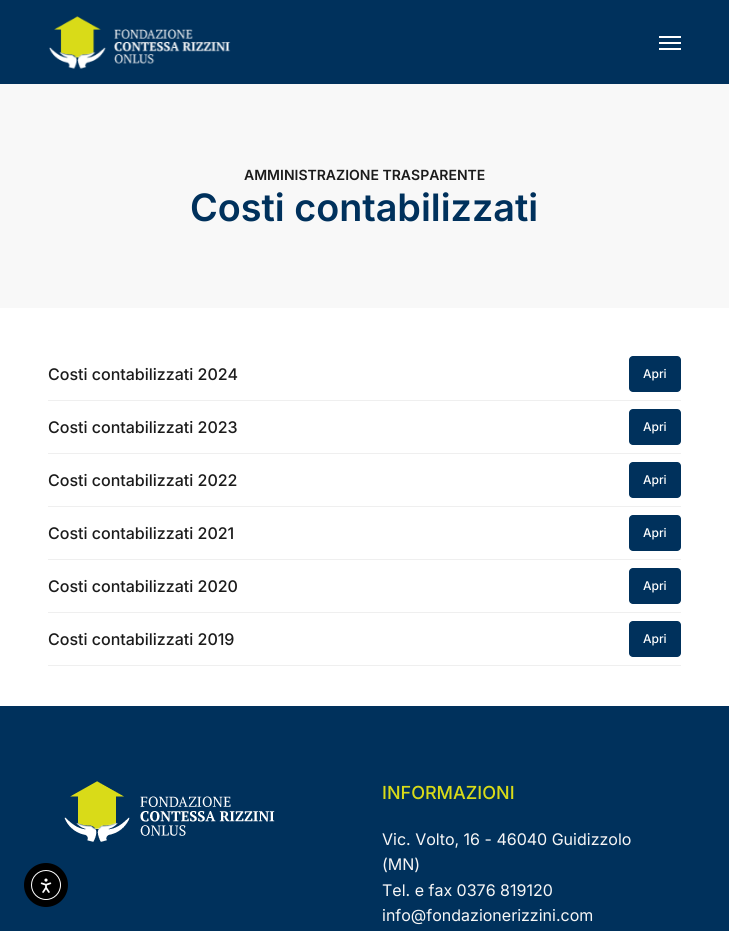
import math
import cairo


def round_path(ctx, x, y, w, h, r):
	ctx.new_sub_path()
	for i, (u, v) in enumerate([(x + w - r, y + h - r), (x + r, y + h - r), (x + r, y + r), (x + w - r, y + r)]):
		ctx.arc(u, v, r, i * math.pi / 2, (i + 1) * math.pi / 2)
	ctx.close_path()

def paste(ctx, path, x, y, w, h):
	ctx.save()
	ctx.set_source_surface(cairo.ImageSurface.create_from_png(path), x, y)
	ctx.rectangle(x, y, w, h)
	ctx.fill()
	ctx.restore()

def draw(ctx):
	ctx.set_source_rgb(1, 1, 1)
	ctx.paint()
	ctx.set_source_rgb(0, 0.192, 0.361)
	ctx.rectangle(0, 0, 729, 84)
	ctx.fill()
	paste(ctx, 'media/1.png', 49, 16, 182, 53)
	ctx.set_source_rgb(1, 1, 1)
	ctx.rectangle(659, 36, 22, 2)
	ctx.rectangle(659, 48, 22, 2)
	ctx.rectangle(659, 42, 22, 2)
	ctx.fill()
	ctx.set_source_rgb(0, 0.192, 0.361)
	ctx.rectangle(0, 706, 729, 225)
	ctx.fill()
	ctx.set_source_rgb(0, 0, 0)
	ctx.arc(46, 885, 22, 0, 2 * math.pi)
	ctx.fill()
	ctx.arc(46, 885, 14.5, 0, 2 * math.pi)
	ctx.set_source_rgb(1, 1, 1)
	ctx.set_line_width(1)
	ctx.stroke()
	paste(ctx, 'media/2.png', 40, 878, 12, 15)
	ctx.set_source_rgb(0.969, 0.969, 0.969)
	ctx.rectangle(0, 84, 729, 224)
	ctx.fill()
	ctx.select_font_face('Inter SemiBold')
	ctx.set_font_size(14)
	ctx.set_source_rgb(0.106, 0.106, 0.106)
	ctx.move_to(244, 180)
	ctx.show_text('AMMINISTRAZIONE TRASPARENTE')
	ctx.set_font_size(37.75)
	ctx.set_source_rgb(0, 0.192, 0.361)
	ctx.move_to(190, 221)
	ctx.show_text('Costi contabilizzati')
	ctx.set_source_rgb(0.937, 0.937, 0.937)
	ctx.rectangle(48, 400, 633, 1)
	ctx.fill()
	ctx.select_font_face('Inter Medium')
	ctx.set_font_size(16)
	ctx.set_source_rgb(0.106, 0.106, 0.106)
	ctx.move_to(48, 380)
	ctx.show_text('Costi contabilizzati 2024')
	ctx.set_source_rgb(0, 0.192, 0.361)
	round_path(ctx, 629, 356, 52, 36, 4)
	ctx.fill()
	ctx.set_font_size(12)
	ctx.set_source_rgb(1, 1, 1)
	ctx.move_to(643, 378)
	ctx.show_text('Apri')
	ctx.set_source_rgb(0.937, 0.937, 0.937)
	ctx.rectangle(48, 453, 633, 1)
	ctx.fill()
	ctx.set_font_size(16)
	ctx.set_source_rgb(0.106, 0.106, 0.106)
	ctx.move_to(48, 433)
	ctx.show_text('Costi contabilizzati 2023')
	ctx.set_source_rgb(0, 0.192, 0.361)
	round_path(ctx, 629, 409, 52, 36, 4)
	ctx.fill()
	ctx.set_font_size(12)
	ctx.set_source_rgb(1, 1, 1)
	ctx.move_to(643, 431)
	ctx.show_text('Apri')
	ctx.set_source_rgb(0.937, 0.937, 0.937)
	ctx.rectangle(48, 506, 633, 1)
	ctx.fill()
	ctx.set_font_size(16)
	ctx.set_source_rgb(0.106, 0.106, 0.106)
	ctx.move_to(48, 486)
	ctx.show_text('Costi contabilizzati 2022')
	ctx.set_source_rgb(0, 0.192, 0.361)
	round_path(ctx, 629, 462, 52, 36, 4)
	ctx.fill()
	ctx.set_font_size(12)
	ctx.set_source_rgb(1, 1, 1)
	ctx.move_to(643, 484)
	ctx.show_text('Apri')
	ctx.set_source_rgb(0.937, 0.937, 0.937)
	ctx.rectangle(48, 559, 633, 1)
	ctx.fill()
	ctx.set_font_size(16)
	ctx.set_source_rgb(0.106, 0.106, 0.106)
	ctx.move_to(48, 539)
	ctx.show_text('Costi contabilizzati 2021')
	ctx.set_source_rgb(0, 0.192, 0.361)
	round_path(ctx, 629, 515, 52, 36, 4)
	ctx.fill()
	ctx.set_font_size(12)
	ctx.set_source_rgb(1, 1, 1)
	ctx.move_to(643, 537)
	ctx.show_text('Apri')
	ctx.set_source_rgb(0.937, 0.937, 0.937)
	ctx.rectangle(48, 612, 633, 1)
	ctx.fill()
	ctx.set_font_size(16)
	ctx.set_source_rgb(0.106, 0.106, 0.106)
	ctx.move_to(48, 592)
	ctx.show_text('Costi contabilizzati 2020')
	ctx.set_source_rgb(0, 0.192, 0.361)
	round_path(ctx, 629, 568, 52, 36, 4)
	ctx.fill()
	ctx.set_font_size(12)
	ctx.set_source_rgb(1, 1, 1)
	ctx.move_to(643, 590)
	ctx.show_text('Apri')
	ctx.set_source_rgb(0.937, 0.937, 0.937)
	ctx.rectangle(48, 665, 633, 1)
	ctx.fill()
	ctx.set_font_size(16)
	ctx.set_source_rgb(0.106, 0.106, 0.106)
	ctx.move_to(48, 645)
	ctx.show_text('Costi contabilizzati 2019')
	ctx.set_source_rgb(0, 0.192, 0.361)
	round_path(ctx, 629, 621, 52, 36, 4)
	ctx.fill()
	ctx.set_font_size(12)
	ctx.set_source_rgb(1, 1, 1)
	ctx.move_to(643, 643)
	ctx.show_text('Apri')
	paste(ctx, 'media/3.png', 64, 781, 211, 61)
	ctx.set_font_size(18)
	ctx.set_source_rgb(0.851, 0.859, 0.094)
	ctx.move_to(382, 799)
	ctx.show_text('INFORMAZIONI')
	ctx.select_font_face('Inter')
	ctx.set_font_size(16)
	ctx.set_source_rgb(0.965, 0.961, 0.961)
	for x, y, s in [
		(382, 845, 'Vic. Volto, 16 - 46040 Guidizzolo'),
		(382, 870, '(MN)'),
		(382, 896, 'Tel. e fax 0376 819120'),
		(382, 921, 'info@fondazionerizzini.com'),
	]:
		ctx.move_to(x, y)
		ctx.show_text(s)


surface = cairo.ImageSurface(cairo.FORMAT_RGB24, 729, 931)
ctx = cairo.Context(surface)
options = cairo.FontOptions()
options.set_hint_metrics(cairo.HINT_METRICS_OFF)
options.set_hint_style(cairo.HINT_STYLE_NONE)
ctx.set_font_options(options)
ctx.set_miter_limit(4)
draw(ctx)
surface.write_to_png('image.png')
